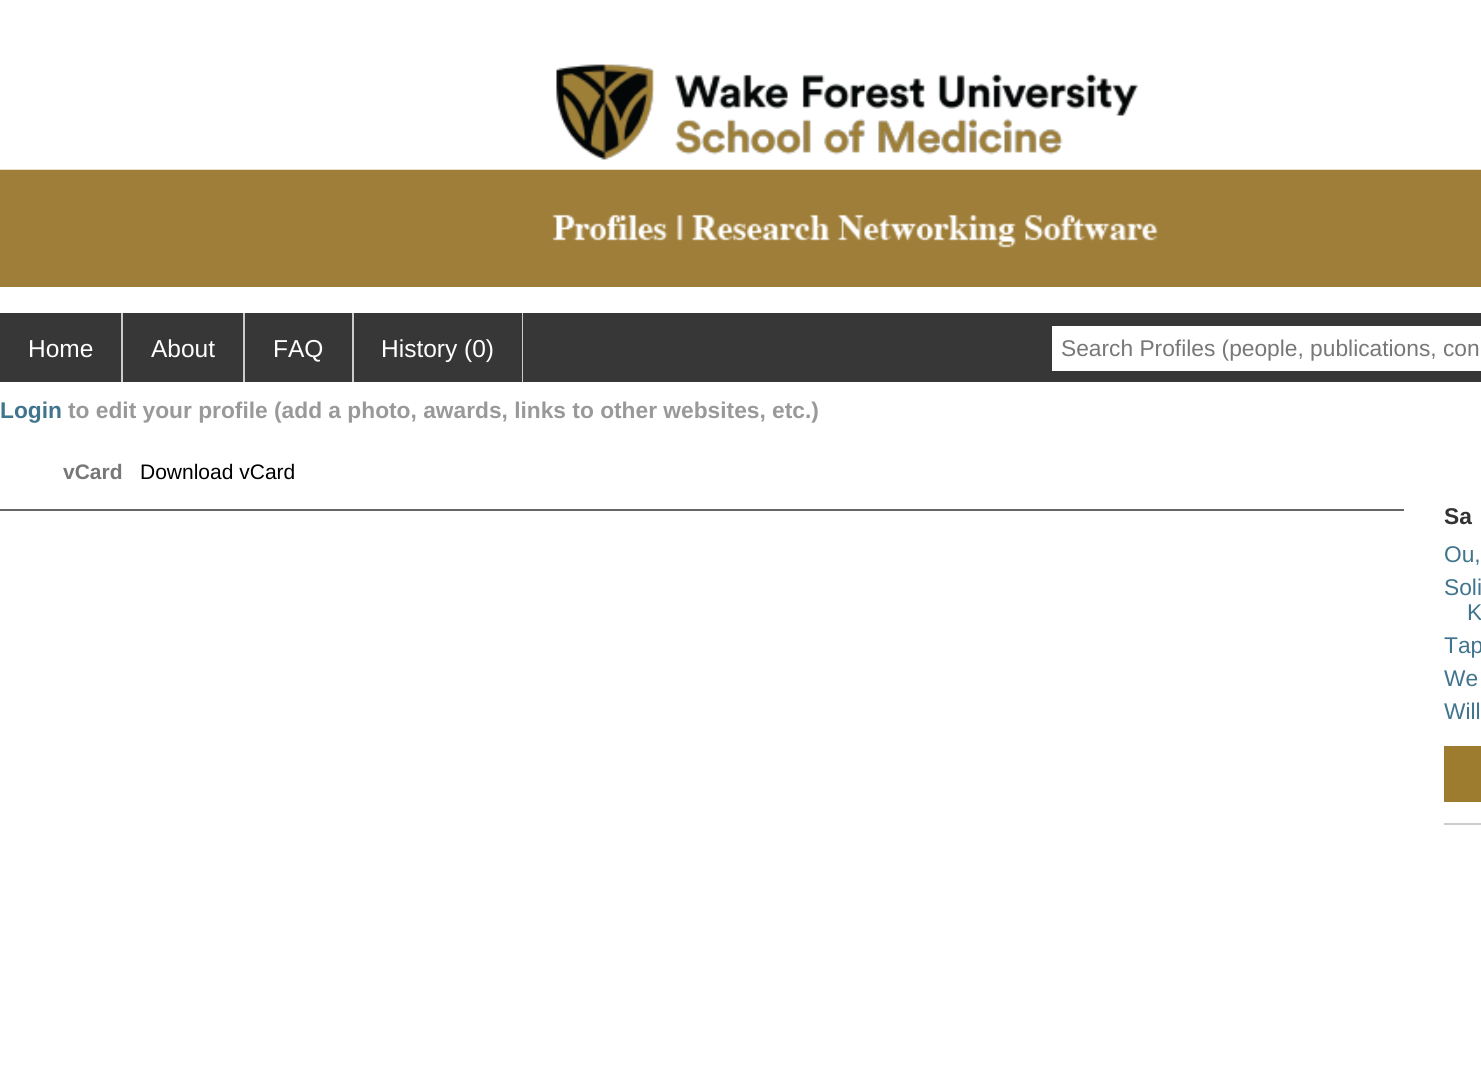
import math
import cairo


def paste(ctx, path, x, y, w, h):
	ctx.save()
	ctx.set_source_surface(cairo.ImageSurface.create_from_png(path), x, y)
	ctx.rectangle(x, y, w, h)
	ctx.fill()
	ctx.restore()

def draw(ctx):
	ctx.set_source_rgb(1, 1, 1)
	ctx.paint()
	paste(ctx, 'media/1.png', 556, 64, 582, 96)
	paste(ctx, 'media/2.png', 0, 169, 1481, 118)
	ctx.set_source_rgb(0.22, 0.216, 0.216)
	ctx.rectangle(0, 313, 1481, 69)
	ctx.fill()
	ctx.set_source_rgb(0.8, 0.8, 0.8)
	ctx.rectangle(121, 313, 2, 69)
	ctx.fill()
	ctx.select_font_face('Liberation Sans')
	ctx.set_font_size(24.5)
	ctx.set_source_rgb(1, 1, 1)
	ctx.move_to(28, 357)
	ctx.show_text('Home')
	ctx.set_source_rgb(0.8, 0.8, 0.8)
	ctx.rectangle(243, 313, 2, 69)
	ctx.fill()
	ctx.set_source_rgb(1, 1, 1)
	ctx.move_to(151, 357)
	ctx.show_text('About')
	ctx.set_source_rgb(0.8, 0.8, 0.8)
	ctx.rectangle(352, 313, 2, 69)
	ctx.fill()
	ctx.set_source_rgb(1, 1, 1)
	ctx.move_to(273, 357)
	ctx.show_text('FAQ')
	ctx.set_source_rgb(0.8, 0.8, 0.8)
	ctx.rectangle(522, 313, 1, 69)
	ctx.fill()
	ctx.set_source_rgb(1, 1, 1)
	ctx.move_to(381, 357)
	ctx.show_text('History (0)')
	ctx.rectangle(1052, 326, 429, 45)
	ctx.fill()
	ctx.set_font_size(22.75)
	ctx.set_source_rgb(0.467, 0.467, 0.467)
	ctx.move_to(1061, 356)
	ctx.show_text('Search Profiles (people, publications, con')
	ctx.select_font_face('Liberation Sans', cairo.FONT_SLANT_NORMAL, cairo.FONT_WEIGHT_BOLD)
	ctx.set_source_rgb(0.255, 0.455, 0.553)
	ctx.move_to(0, 418)
	ctx.show_text('Login')
	ctx.set_source_rgb(0.6, 0.6, 0.6)
	ctx.move_to(68, 418)
	ctx.show_text('to edit your profile (add a photo, awards, links to other websites, etc.)')
	ctx.set_font_size(21)
	ctx.set_source_rgb(0.467, 0.467, 0.467)
	ctx.move_to(63, 479)
	ctx.show_text('vCard')
	ctx.select_font_face('Liberation Sans')
	ctx.set_source_rgb(0, 0, 0)
	ctx.move_to(140, 479)
	ctx.show_text('Download vCard')
	ctx.set_source_rgb(0.4, 0.4, 0.4)
	ctx.rectangle(0, 509, 1404, 2)
	ctx.fill()
	ctx.select_font_face('Liberation Sans', cairo.FONT_SLANT_NORMAL, cairo.FONT_WEIGHT_BOLD)
	ctx.set_font_size(22.75)
	ctx.set_source_rgb(0.2, 0.2, 0.2)
	ctx.move_to(1444, 524)
	ctx.show_text('Sa')
	ctx.select_font_face('Liberation Sans')
	ctx.set_source_rgb(0.255, 0.455, 0.553)
	for x, y, s in [
		(1444, 562, 'Ou,'),
		(1444, 595, 'Soli'),
		(1467, 620, 'K'),
		(1444, 653, 'Tap'),
		(1444, 686, 'We'),
		(1444, 719, 'Will'),
	]:
		ctx.move_to(x, y)
		ctx.show_text(s)
	ctx.set_source_rgb(0.616, 0.486, 0.184)
	ctx.rectangle(1444, 746, 37, 56)
	ctx.fill()
	ctx.set_source_rgb(0.8, 0.8, 0.8)
	ctx.rectangle(1444, 823, 37, 2)
	ctx.fill()


surface = cairo.ImageSurface(cairo.FORMAT_RGB24, 1481, 1087)
ctx = cairo.Context(surface)
options = cairo.FontOptions()
options.set_hint_metrics(cairo.HINT_METRICS_OFF)
options.set_hint_style(cairo.HINT_STYLE_NONE)
ctx.set_font_options(options)
ctx.set_miter_limit(4)
draw(ctx)
surface.write_to_png('image.png')
